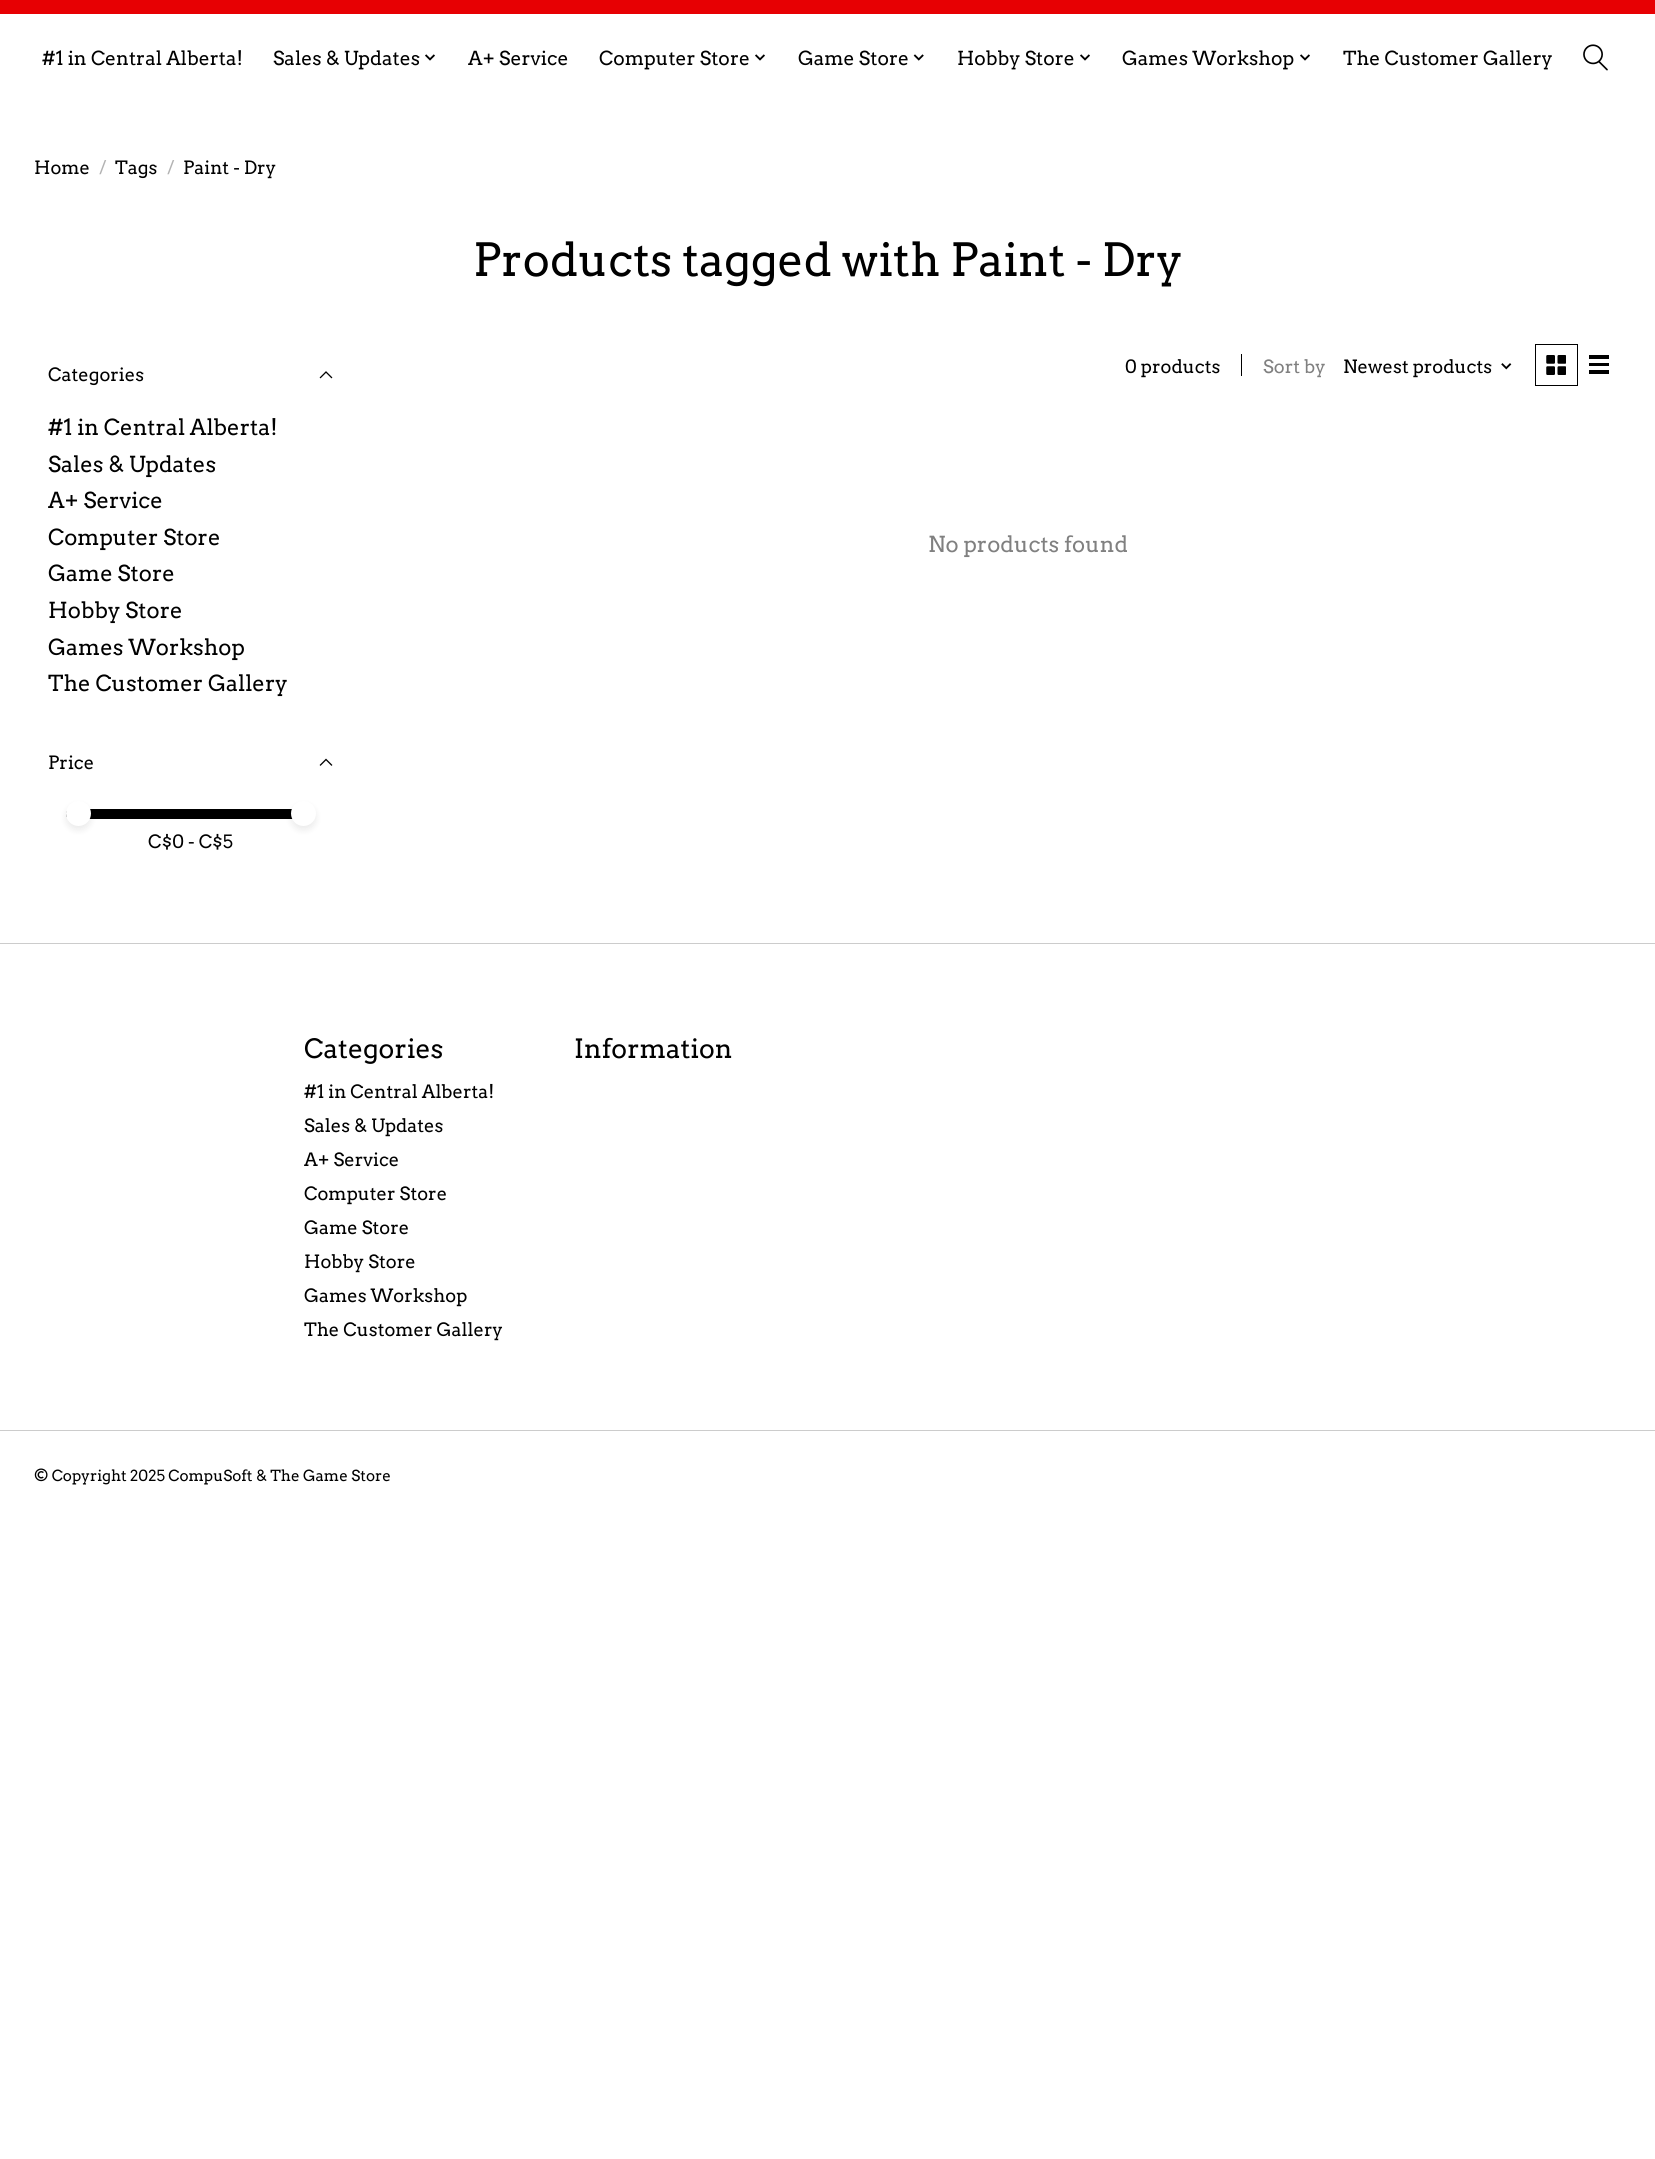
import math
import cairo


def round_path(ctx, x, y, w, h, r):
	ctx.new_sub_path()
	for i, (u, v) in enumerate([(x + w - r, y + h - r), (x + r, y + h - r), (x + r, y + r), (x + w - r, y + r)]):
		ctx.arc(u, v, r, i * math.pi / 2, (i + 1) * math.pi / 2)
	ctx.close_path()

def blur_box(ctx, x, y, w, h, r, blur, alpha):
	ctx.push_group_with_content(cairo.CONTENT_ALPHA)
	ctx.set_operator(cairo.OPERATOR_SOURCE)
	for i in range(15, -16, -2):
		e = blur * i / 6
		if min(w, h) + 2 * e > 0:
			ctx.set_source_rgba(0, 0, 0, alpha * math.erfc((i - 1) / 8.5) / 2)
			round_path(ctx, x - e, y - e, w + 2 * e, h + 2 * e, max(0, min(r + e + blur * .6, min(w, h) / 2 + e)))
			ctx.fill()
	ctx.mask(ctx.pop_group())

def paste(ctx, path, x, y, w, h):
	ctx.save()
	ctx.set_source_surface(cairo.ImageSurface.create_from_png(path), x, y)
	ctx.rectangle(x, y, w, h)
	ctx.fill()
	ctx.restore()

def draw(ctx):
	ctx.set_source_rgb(1, 1, 1)
	ctx.paint()
	ctx.set_source_rgb(0.906, 0, 0.012)
	ctx.rectangle(0, 0, 1655, 14)
	ctx.fill()
	ctx.select_font_face('Arvo')
	ctx.set_font_size(19.25)
	ctx.set_source_rgb(0, 0, 0)
	ctx.move_to(42, 65)
	ctx.show_text('#1 in Central Alberta!')
	ctx.move_to(273, 65)
	ctx.show_text('Sales & Updates')
	paste(ctx, 'media/1.png', 425, 54, 10, 7)
	ctx.move_to(468, 65)
	ctx.show_text('A+ Service')
	ctx.move_to(599, 65)
	ctx.show_text('Computer Store')
	paste(ctx, 'media/1.png', 755, 54, 10, 7)
	ctx.move_to(798, 65)
	ctx.show_text('Game Store')
	paste(ctx, 'media/2.png', 913, 54, 11, 7)
	ctx.move_to(957, 65)
	ctx.show_text('Hobby Store')
	paste(ctx, 'media/1.png', 1080, 54, 10, 7)
	ctx.move_to(1122, 65)
	ctx.show_text('Games Workshop')
	paste(ctx, 'media/1.png', 1300, 54, 10, 7)
	ctx.move_to(1343, 65)
	ctx.show_text('The Customer Gallery')
	paste(ctx, 'media/3.png', 1583, 44, 25, 27)
	ctx.set_font_size(18.25)
	ctx.move_to(34, 174)
	ctx.show_text('Home')
	ctx.set_source_rgb(0.702, 0.702, 0.702)
	ctx.move_to(99, 174)
	ctx.show_text('/')
	ctx.set_source_rgb(0, 0, 0)
	ctx.move_to(115, 174)
	ctx.show_text('Tags')
	ctx.set_source_rgb(0.702, 0.702, 0.702)
	ctx.move_to(167, 174)
	ctx.show_text('/')
	ctx.set_source_rgb(0, 0, 0)
	ctx.move_to(183, 174)
	ctx.show_text('Paint - Dry')
	ctx.set_font_size(45.6)
	ctx.move_to(473, 276)
	ctx.show_text('Products tagged with Paint - Dry')
	ctx.set_font_size(18.25)
	ctx.move_to(48, 381)
	ctx.show_text('Categories')
	ctx.new_path()
	ctx.move_to(320.5, 377.5)
	ctx.line_to(326, 372)
	ctx.move_to(331.5, 377.5)
	ctx.line_to(326, 372)
	ctx.set_line_width(1.3)
	ctx.set_line_cap(cairo.LINE_CAP_SQUARE)
	ctx.stroke()
	ctx.set_font_size(22)
	for x, y, s in [
		(48, 435, '#1 in Central Alberta!'),
		(48, 472, 'Sales & Updates'),
		(48, 508, 'A+ Service'),
		(48, 545, 'Computer Store'),
		(48, 581, 'Game Store'),
		(48, 618, 'Hobby Store'),
		(48, 655, 'Games Workshop'),
		(48, 691, 'The Customer Gallery'),
	]:
		ctx.move_to(x, y)
		ctx.show_text(s)
	ctx.set_font_size(18.25)
	ctx.move_to(48, 769)
	ctx.show_text('Price')
	ctx.new_path()
	ctx.move_to(320.5, 765)
	ctx.line_to(326, 759.5)
	ctx.move_to(331.5, 765)
	ctx.line_to(326, 759.5)
	ctx.stroke()
	ctx.new_path()
	ctx.move_to(71, 809)
	ctx.line_to(304, 809)
	ctx.line_to(304, 819)
	ctx.line_to(71, 819)
	ctx.curve_to(68, 819, 66, 817, 66, 814)
	ctx.curve_to(66, 811, 68, 809, 71, 809)
	ctx.close_path()
	ctx.fill()
	ctx.set_source_rgb(0, 0, 0)
	blur_box(ctx, 66, 805, 25, 25, 12.5, 3.5, 0.08)
	ctx.set_source_rgb(1, 1, 1)
	ctx.arc(78.5, 813.5, 12.5, 0, 2 * math.pi)
	ctx.fill()
	ctx.set_source_rgb(0, 0, 0)
	ctx.move_to(148, 848)
	ctx.show_text('C$0 - C$5')
	ctx.set_source_rgb(0, 0, 0)
	blur_box(ctx, 291, 805, 25, 25, 12.5, 3.5, 0.08)
	ctx.set_source_rgb(1, 1, 1)
	ctx.arc(303.5, 813.5, 12.5, 0, 2 * math.pi)
	ctx.fill()
	ctx.set_source_rgb(0, 0, 0)
	ctx.move_to(1125, 373)
	ctx.show_text('0 products')
	ctx.rectangle(1241, 354, 1, 22)
	ctx.fill()
	ctx.set_source_rgb(0.502, 0.502, 0.502)
	ctx.move_to(1263, 373)
	ctx.show_text('Sort by')
	ctx.set_source_rgb(0, 0, 0)
	ctx.move_to(1343, 373)
	ctx.show_text('Newest products')
	paste(ctx, 'media/4.png', 1501, 363, 11, 7)
	ctx.rectangle(1535.5, 344.5, 42, 41)
	ctx.set_line_width(1)
	ctx.set_line_cap(cairo.LINE_CAP_BUTT)
	ctx.stroke()
	paste(ctx, 'media/5.png', 1546, 355, 20, 20)
	ctx.rectangle(1589, 355, 20, 4)
	ctx.rectangle(1589, 363, 20, 3)
	ctx.rectangle(1589, 370, 20, 4)
	ctx.fill()
	ctx.set_font_size(22)
	ctx.set_source_rgb(0.502, 0.502, 0.502)
	ctx.move_to(928, 552)
	ctx.show_text('No products found')
	ctx.set_source_rgb(0.8, 0.8, 0.8)
	ctx.rectangle(0, 943, 1655, 1)
	ctx.fill()
	ctx.set_font_size(26.5)
	ctx.set_source_rgb(0, 0, 0)
	ctx.move_to(304, 1058)
	ctx.show_text('Categories')
	ctx.set_font_size(18.25)
	for x, y, s in [
		(304, 1098, '#1 in Central Alberta!'),
		(304, 1132, 'Sales & Updates'),
		(304, 1166, 'A+ Service'),
		(304, 1200, 'Computer Store'),
		(304, 1234, 'Game Store'),
		(304, 1268, 'Hobby Store'),
		(304, 1302, 'Games Workshop'),
		(304, 1336, 'The Customer Gallery'),
	]:
		ctx.move_to(x, y)
		ctx.show_text(s)
	ctx.set_font_size(26.5)
	ctx.move_to(574, 1058)
	ctx.show_text('Information')
	ctx.set_source_rgb(0.8, 0.8, 0.8)
	ctx.rectangle(0, 1430, 1655, 1)
	ctx.fill()
	ctx.set_font_size(15.25)
	ctx.set_source_rgb(0, 0, 0)
	ctx.move_to(34, 1481)
	ctx.show_text('© Copyright 2025 CompuSoft & The Game Store')


surface = cairo.ImageSurface(cairo.FORMAT_RGB24, 1655, 2159)
ctx = cairo.Context(surface)
options = cairo.FontOptions()
options.set_hint_metrics(cairo.HINT_METRICS_OFF)
options.set_hint_style(cairo.HINT_STYLE_NONE)
ctx.set_font_options(options)
ctx.set_miter_limit(4)
draw(ctx)
surface.write_to_png('image.png')
